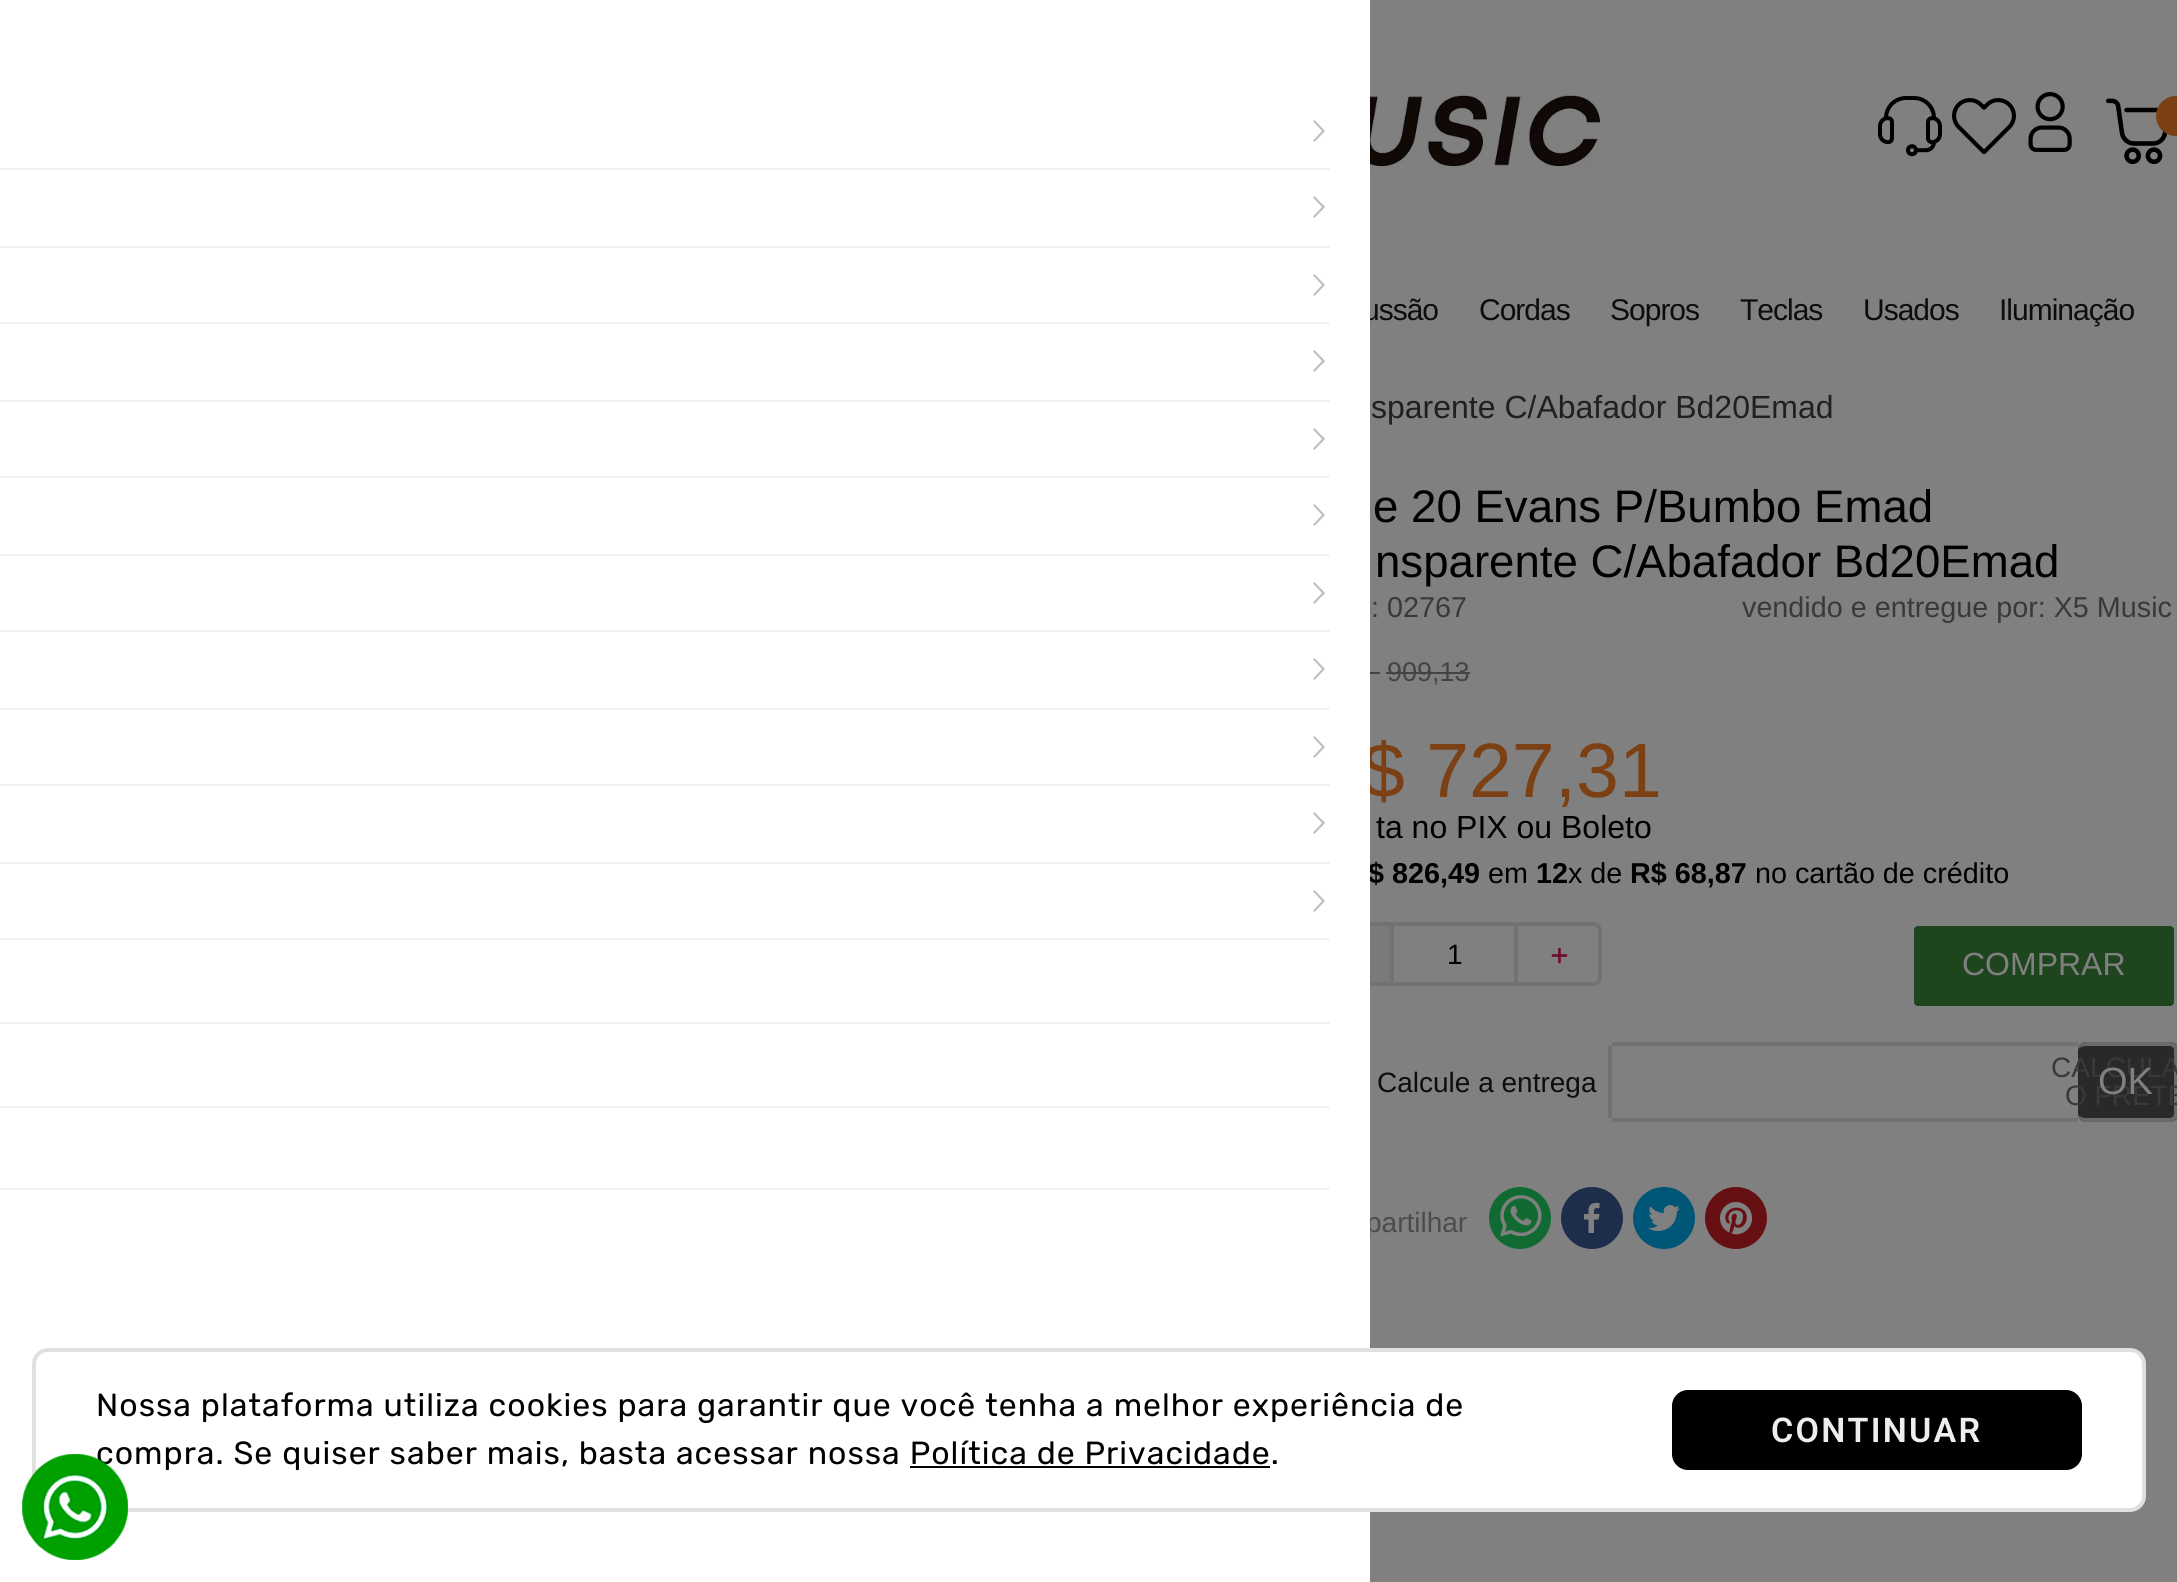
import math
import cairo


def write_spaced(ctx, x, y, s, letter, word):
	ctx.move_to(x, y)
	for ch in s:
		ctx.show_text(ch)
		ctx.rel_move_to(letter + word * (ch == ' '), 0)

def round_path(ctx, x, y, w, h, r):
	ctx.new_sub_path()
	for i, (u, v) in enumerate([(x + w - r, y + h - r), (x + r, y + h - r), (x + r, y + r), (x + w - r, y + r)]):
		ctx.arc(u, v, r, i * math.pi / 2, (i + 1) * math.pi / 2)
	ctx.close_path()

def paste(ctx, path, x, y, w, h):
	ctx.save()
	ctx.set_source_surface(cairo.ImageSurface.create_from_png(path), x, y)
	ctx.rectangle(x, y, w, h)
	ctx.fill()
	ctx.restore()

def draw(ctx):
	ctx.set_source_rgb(0.502, 0.502, 0.502)
	ctx.paint()
	paste(ctx, 'media/1.png', 1370, 26, 231, 199)
	paste(ctx, 'media/2.png', 1878, 96, 64, 61)
	paste(ctx, 'media/3.png', 1952, 98, 64, 57)
	paste(ctx, 'media/4.png', 2028, 92, 44, 60)
	paste(ctx, 'media/5.png', 2106, 98, 62, 67)
	ctx.set_source_rgb(0.482, 0.251, 0.078)
	ctx.arc(2176, 116, 20, 0, 2 * math.pi)
	ctx.fill()
	ctx.select_font_face('Liberation Sans')
	ctx.set_font_size(30)
	ctx.set_source_rgb(0.051, 0.051, 0.051)
	write_spaced(ctx, 1363, 320, 'ussão', -1, 0)
	ctx.set_font_size(77)
	ctx.set_source_rgb(0.482, 0.251, 0.078)
	ctx.move_to(1362, 797)
	ctx.show_text('$ 727,31')
	ctx.select_font_face('Liberation Sans', cairo.FONT_SLANT_NORMAL, cairo.FONT_WEIGHT_BOLD)
	ctx.set_font_size(28.75)
	ctx.set_source_rgb(0, 0, 0)
	ctx.move_to(1368, 883)
	ctx.show_text('$ 826,49')
	ctx.set_source_rgb(0.475, 0.478, 0.482)
	ctx.rectangle(1370, 926, 20, 56)
	ctx.fill()
	ctx.set_source_rgb(0.447, 0.447, 0.451)
	ctx.set_fill_rule(cairo.FILL_RULE_EVEN_ODD)
	ctx.new_path()
	ctx.move_to(1314, 922)
	ctx.line_to(1390, 922)
	ctx.line_to(1390, 986)
	ctx.line_to(1314, 986)
	ctx.curve_to(1310, 986, 1306, 982, 1306, 978)
	ctx.line_to(1306, 930)
	ctx.curve_to(1306, 926, 1310, 922, 1314, 922)
	ctx.close_path()
	ctx.move_to(1314, 926)
	ctx.line_to(1390, 926)
	ctx.line_to(1390, 982)
	ctx.line_to(1314, 982)
	ctx.curve_to(1312, 982, 1310, 980, 1310, 978)
	ctx.line_to(1310, 930)
	ctx.curve_to(1310, 928, 1312, 926, 1314, 926)
	ctx.close_path()
	ctx.fill()
	ctx.select_font_face('Liberation Sans')
	ctx.set_font_size(28)
	ctx.set_source_rgb(0.298, 0.298, 0.302)
	ctx.move_to(1366, 1232)
	ctx.show_text('partilhar')
	ctx.set_source_rgb(1, 1, 1)
	ctx.rectangle(0, 0, 1370, 1582)
	ctx.fill()
	ctx.set_source_rgb(0.953, 0.953, 0.953)
	ctx.rectangle(0, 168, 1330, 2)
	ctx.fill()
	ctx.set_source_rgb(0.745, 0.745, 0.745)
	ctx.set_fill_rule(cairo.FILL_RULE_WINDING)
	ctx.new_path()
	ctx.move_to(1314.5, 142)
	ctx.line_to(1313, 140.5)
	ctx.line_to(1322, 131)
	ctx.line_to(1313, 121.5)
	ctx.line_to(1314.5, 120)
	ctx.line_to(1325, 131)
	ctx.close_path()
	ctx.fill()
	ctx.set_source_rgb(0.953, 0.953, 0.953)
	ctx.rectangle(0, 246, 1330, 2)
	ctx.fill()
	ctx.set_source_rgb(0.745, 0.745, 0.745)
	ctx.new_path()
	ctx.move_to(1314.5, 218)
	ctx.line_to(1313, 216.5)
	ctx.line_to(1322, 207)
	ctx.line_to(1313, 197.5)
	ctx.line_to(1314.5, 196)
	ctx.line_to(1325, 207)
	ctx.close_path()
	ctx.fill()
	ctx.set_source_rgb(0.953, 0.953, 0.953)
	ctx.rectangle(0, 322, 1330, 2)
	ctx.fill()
	ctx.set_source_rgb(0.745, 0.745, 0.745)
	ctx.new_path()
	ctx.move_to(1314.5, 296)
	ctx.line_to(1313, 294.5)
	ctx.line_to(1322, 285)
	ctx.line_to(1313, 275.5)
	ctx.line_to(1314.5, 274)
	ctx.line_to(1325, 285)
	ctx.close_path()
	ctx.fill()
	ctx.set_source_rgb(0.953, 0.953, 0.953)
	ctx.rectangle(0, 400, 1330, 2)
	ctx.fill()
	ctx.set_source_rgb(0.745, 0.745, 0.745)
	ctx.new_path()
	ctx.move_to(1314.5, 372)
	ctx.line_to(1313, 370.5)
	ctx.line_to(1322, 361)
	ctx.line_to(1313, 351.5)
	ctx.line_to(1314.5, 350)
	ctx.line_to(1325, 361)
	ctx.close_path()
	ctx.fill()
	ctx.set_source_rgb(0.953, 0.953, 0.953)
	ctx.rectangle(0, 476, 1330, 2)
	ctx.fill()
	ctx.set_source_rgb(0.745, 0.745, 0.745)
	ctx.new_path()
	ctx.move_to(1314.5, 450)
	ctx.line_to(1313, 448.5)
	ctx.line_to(1322, 439)
	ctx.line_to(1313, 429.5)
	ctx.line_to(1314.5, 428)
	ctx.line_to(1325, 439)
	ctx.close_path()
	ctx.fill()
	ctx.set_source_rgb(0.953, 0.953, 0.953)
	ctx.rectangle(0, 554, 1330, 2)
	ctx.fill()
	ctx.set_source_rgb(0.745, 0.745, 0.745)
	ctx.new_path()
	ctx.move_to(1314.5, 526)
	ctx.line_to(1313, 524.5)
	ctx.line_to(1322, 515)
	ctx.line_to(1313, 505.5)
	ctx.line_to(1314.5, 504)
	ctx.line_to(1325, 515)
	ctx.close_path()
	ctx.fill()
	ctx.set_source_rgb(0.953, 0.953, 0.953)
	ctx.rectangle(0, 630, 1330, 2)
	ctx.fill()
	ctx.set_source_rgb(0.745, 0.745, 0.745)
	ctx.new_path()
	ctx.move_to(1314.5, 604)
	ctx.line_to(1313, 602.5)
	ctx.line_to(1322, 593)
	ctx.line_to(1313, 583.5)
	ctx.line_to(1314.5, 582)
	ctx.line_to(1325, 593)
	ctx.close_path()
	ctx.fill()
	ctx.set_source_rgb(0.953, 0.953, 0.953)
	ctx.rectangle(0, 708, 1330, 2)
	ctx.fill()
	ctx.set_source_rgb(0.745, 0.745, 0.745)
	ctx.new_path()
	ctx.move_to(1314.5, 680)
	ctx.line_to(1313, 678.5)
	ctx.line_to(1322, 669)
	ctx.line_to(1313, 659.5)
	ctx.line_to(1314.5, 658)
	ctx.line_to(1325, 669)
	ctx.close_path()
	ctx.fill()
	ctx.set_source_rgb(0.953, 0.953, 0.953)
	ctx.rectangle(0, 784, 1330, 2)
	ctx.fill()
	ctx.set_source_rgb(0.745, 0.745, 0.745)
	ctx.new_path()
	ctx.move_to(1314.5, 758)
	ctx.line_to(1313, 756.5)
	ctx.line_to(1322, 747)
	ctx.line_to(1313, 737.5)
	ctx.line_to(1314.5, 736)
	ctx.line_to(1325, 747)
	ctx.close_path()
	ctx.fill()
	ctx.set_source_rgb(0.953, 0.953, 0.953)
	ctx.rectangle(0, 862, 1330, 2)
	ctx.fill()
	ctx.set_source_rgb(0.745, 0.745, 0.745)
	ctx.new_path()
	ctx.move_to(1314.5, 834)
	ctx.line_to(1313, 832.5)
	ctx.line_to(1322, 823)
	ctx.line_to(1313, 813.5)
	ctx.line_to(1314.5, 812)
	ctx.line_to(1325, 823)
	ctx.close_path()
	ctx.fill()
	ctx.set_source_rgb(0.953, 0.953, 0.953)
	ctx.rectangle(0, 938, 1330, 2)
	ctx.fill()
	ctx.set_source_rgb(0.745, 0.745, 0.745)
	ctx.new_path()
	ctx.move_to(1314.5, 912)
	ctx.line_to(1313, 910.5)
	ctx.line_to(1322, 901)
	ctx.line_to(1313, 891.5)
	ctx.line_to(1314.5, 890)
	ctx.line_to(1325, 901)
	ctx.close_path()
	ctx.fill()
	ctx.set_source_rgb(0.953, 0.953, 0.953)
	ctx.rectangle(0, 1022, 1330, 2)
	ctx.rectangle(0, 1106, 1330, 2)
	ctx.rectangle(0, 1188, 1330, 2)
	ctx.fill()
	ctx.set_font_size(30)
	ctx.set_source_rgb(0.051, 0.051, 0.051)
	for x, y, s in [
		(1479, 320, 'Cordas'),
		(1610, 320, 'Sopros'),
		(1740, 320, 'Teclas'),
		(1863, 320, 'Usados'),
		(1999, 320, 'Iluminação'),
	]:
		write_spaced(ctx, x, y, s, -1, 0)
	ctx.set_source_rgb(1, 1, 1)
	round_path(ctx, 34, 1350, 2110, 160, 14)
	ctx.fill_preserve()
	ctx.set_source_rgb(0.878, 0.878, 0.878)
	ctx.set_line_width(4)
	ctx.stroke()
	ctx.select_font_face('Rubik')
	ctx.set_font_size(32)
	ctx.set_source_rgb(0, 0, 0)
	write_spaced(ctx, 96, 1416, 'Nossa plataforma utiliza cookies para garantir que você tenha a melhor experiência de', 1.02, 0)
	write_spaced(ctx, 96, 1464, 'compra. Se quiser saber mais, basta acessar nossa Política de Privacidade.', 1.02, 0)
	ctx.set_source_rgb(0.004, 0.004, 0.004)
	ctx.rectangle(910, 1466, 360, 2)
	ctx.fill()
	ctx.set_source_rgb(0, 0, 0)
	round_path(ctx, 1672, 1390, 410, 80, 16)
	ctx.fill()
	ctx.select_font_face('Roboto SemiBold')
	ctx.set_font_size(34)
	ctx.set_source_rgb(0.933, 0.933, 0.933)
	write_spaced(ctx, 1771, 1442, 'CONTINUAR', 2.25, 0)
	ctx.select_font_face('Liberation Sans')
	ctx.set_font_size(32)
	ctx.set_source_rgb(0.125, 0.125, 0.125)
	ctx.move_to(1371, 418)
	ctx.show_text('sparente C/Abafador Bd20Emad')
	ctx.set_font_size(45.6)
	ctx.set_source_rgb(0, 0, 0)
	ctx.move_to(1373, 522)
	ctx.show_text('e 20 Evans P/Bumbo Emad')
	ctx.move_to(1375, 577)
	ctx.show_text('nsparente C/Abafador Bd20Emad')
	ctx.set_font_size(28.75)
	ctx.set_source_rgb(0.224, 0.224, 0.227)
	ctx.move_to(1371, 617)
	ctx.show_text(': 02767')
	ctx.move_to(1742, 617)
	ctx.show_text('vendido e entregue por: X5 Music')
	ctx.set_font_size(27)
	ctx.set_source_rgb(0.267, 0.267, 0.267)
	ctx.move_to(1387, 681)
	ctx.show_text('909,13')
	ctx.rectangle(1370, 672, 10, 2)
	ctx.fill()
	ctx.rectangle(1386, 672, 84, 2)
	ctx.fill()
	ctx.set_font_size(32)
	ctx.set_source_rgb(0, 0, 0)
	ctx.move_to(1376, 838)
	ctx.show_text('ta no PIX ou Boleto')
	ctx.set_font_size(28.75)
	ctx.move_to(1488, 883)
	ctx.show_text('em')
	ctx.select_font_face('Liberation Sans', cairo.FONT_SLANT_NORMAL, cairo.FONT_WEIGHT_BOLD)
	ctx.move_to(1536, 883)
	ctx.show_text('12')
	ctx.select_font_face('Liberation Sans')
	ctx.move_to(1568, 883)
	ctx.show_text('x de')
	ctx.select_font_face('Liberation Sans', cairo.FONT_SLANT_NORMAL, cairo.FONT_WEIGHT_BOLD)
	ctx.move_to(1630, 883)
	ctx.show_text('R$ 68,87')
	ctx.select_font_face('Liberation Sans')
	ctx.move_to(1755, 883)
	ctx.show_text('no cartão de crédito')
	ctx.rectangle(1392, 924, 124, 60)
	ctx.set_source_rgb(0.447, 0.447, 0.451)
	ctx.stroke()
	ctx.set_font_size(28)
	ctx.set_source_rgb(0, 0, 0)
	ctx.move_to(1447, 964)
	ctx.show_text('1')
	ctx.set_source_rgb(0.447, 0.447, 0.451)
	ctx.set_fill_rule(cairo.FILL_RULE_EVEN_ODD)
	ctx.new_path()
	ctx.move_to(1518, 922)
	ctx.line_to(1594, 922)
	ctx.curve_to(1598, 922, 1602, 926, 1602, 930)
	ctx.line_to(1602, 978)
	ctx.curve_to(1602, 982, 1598, 986, 1594, 986)
	ctx.line_to(1518, 986)
	ctx.close_path()
	ctx.move_to(1518, 926)
	ctx.line_to(1594, 926)
	ctx.curve_to(1596, 926, 1598, 928, 1598, 930)
	ctx.line_to(1598, 978)
	ctx.curve_to(1598, 980, 1596, 982, 1594, 982)
	ctx.line_to(1518, 982)
	ctx.close_path()
	ctx.fill()
	ctx.select_font_face('WenQuanYi Zen Hei', cairo.FONT_SLANT_NORMAL, cairo.FONT_WEIGHT_BOLD)
	ctx.set_source_rgb(0.435, 0.043, 0.176)
	ctx.move_to(1545, 964)
	ctx.show_text('＋')
	ctx.set_source_rgb(0.118, 0.271, 0.114)
	round_path(ctx, 1912, 924, 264, 84, 6)
	ctx.fill_preserve()
	ctx.set_source_rgb(0.502, 0.502, 0.502)
	ctx.stroke()
	ctx.select_font_face('Liberation Sans')
	ctx.set_font_size(32)
	ctx.move_to(1962, 975)
	ctx.show_text('COMPRAR')
	ctx.set_font_size(28)
	ctx.set_source_rgb(0.051, 0.051, 0.051)
	ctx.move_to(1377, 1092)
	ctx.show_text('Calcule a entrega')
	ctx.set_source_rgb(0.447, 0.447, 0.451)
	ctx.rectangle(1608, 1042, 470, 4)
	ctx.rectangle(1608, 1118, 470, 4)
	ctx.rectangle(1608, 1042, 4, 80)
	ctx.fill()
	ctx.set_source_rgb(0.161, 0.161, 0.161)
	round_path(ctx, 2078, 1042, 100, 80, 8)
	ctx.fill()
	ctx.set_source_rgb(0.416, 0.416, 0.416)
	ctx.new_path()
	ctx.move_to(2086, 1042)
	ctx.line_to(2170, 1042)
	ctx.curve_to(2174, 1042, 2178, 1046, 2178, 1050)
	ctx.line_to(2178, 1114)
	ctx.curve_to(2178, 1118, 2174, 1122, 2170, 1122)
	ctx.line_to(2086, 1122)
	ctx.curve_to(2082, 1122, 2078, 1118, 2078, 1114)
	ctx.line_to(2078, 1050)
	ctx.curve_to(2078, 1046, 2082, 1042, 2086, 1042)
	ctx.close_path()
	ctx.move_to(2086, 1046)
	ctx.line_to(2170, 1046)
	ctx.curve_to(2172, 1046, 2174, 1048, 2174, 1050)
	ctx.line_to(2174, 1114)
	ctx.curve_to(2174, 1116, 2172, 1118, 2170, 1118)
	ctx.line_to(2086, 1118)
	ctx.curve_to(2082, 1118, 2078, 1116, 2078, 1114)
	ctx.line_to(2078, 1050)
	ctx.curve_to(2078, 1048, 2082, 1046, 2086, 1046)
	ctx.close_path()
	ctx.fill()
	ctx.set_source_rgb(0.224, 0.224, 0.227)
	ctx.move_to(2051, 1077)
	ctx.show_text('CALCULA')
	ctx.move_to(2065, 1105)
	ctx.show_text('O FRETE')
	ctx.set_font_size(38)
	ctx.set_source_rgb(0.502, 0.502, 0.502)
	ctx.move_to(2098, 1094)
	ctx.show_text('OK')
	paste(ctx, 'media/6.png', 1489, 1187, 62, 62)
	ctx.set_source_rgb(0.118, 0.176, 0.298)
	ctx.arc(1592, 1218, 31, 0, 2 * math.pi)
	ctx.fill()
	ctx.set_source_rgb(0.502, 0.502, 0.502)
	ctx.set_fill_rule(cairo.FILL_RULE_WINDING)
	ctx.new_path()
	ctx.move_to(1594, 1233)
	ctx.line_to(1594, 1219.5)
	ctx.line_to(1598.5, 1219.5)
	ctx.line_to(1599.5, 1214)
	ctx.line_to(1594, 1214)
	ctx.curve_to(1594, 1208.5, 1593.5, 1208, 1599.5, 1208)
	ctx.line_to(1599.5, 1203)
	ctx.curve_to(1595, 1202.5, 1589.5, 1203, 1588.5, 1208.5)
	ctx.line_to(1588.5, 1214)
	ctx.line_to(1584, 1214)
	ctx.line_to(1584, 1219.5)
	ctx.line_to(1588.5, 1219.5)
	ctx.line_to(1588.5, 1233)
	ctx.close_path()
	ctx.fill()
	paste(ctx, 'media/7.png', 1633, 1187, 62, 62)
	paste(ctx, 'media/8.png', 1705, 1187, 62, 62)
	paste(ctx, 'media/9.png', 22, 1454, 106, 106)
	paste(ctx, 'media/10.png', 22, 1454, 106, 106)


surface = cairo.ImageSurface(cairo.FORMAT_RGB24, 2177, 1582)
ctx = cairo.Context(surface)
options = cairo.FontOptions()
options.set_hint_metrics(cairo.HINT_METRICS_OFF)
options.set_hint_style(cairo.HINT_STYLE_NONE)
ctx.set_font_options(options)
ctx.set_miter_limit(4)
draw(ctx)
surface.write_to_png('image.png')
